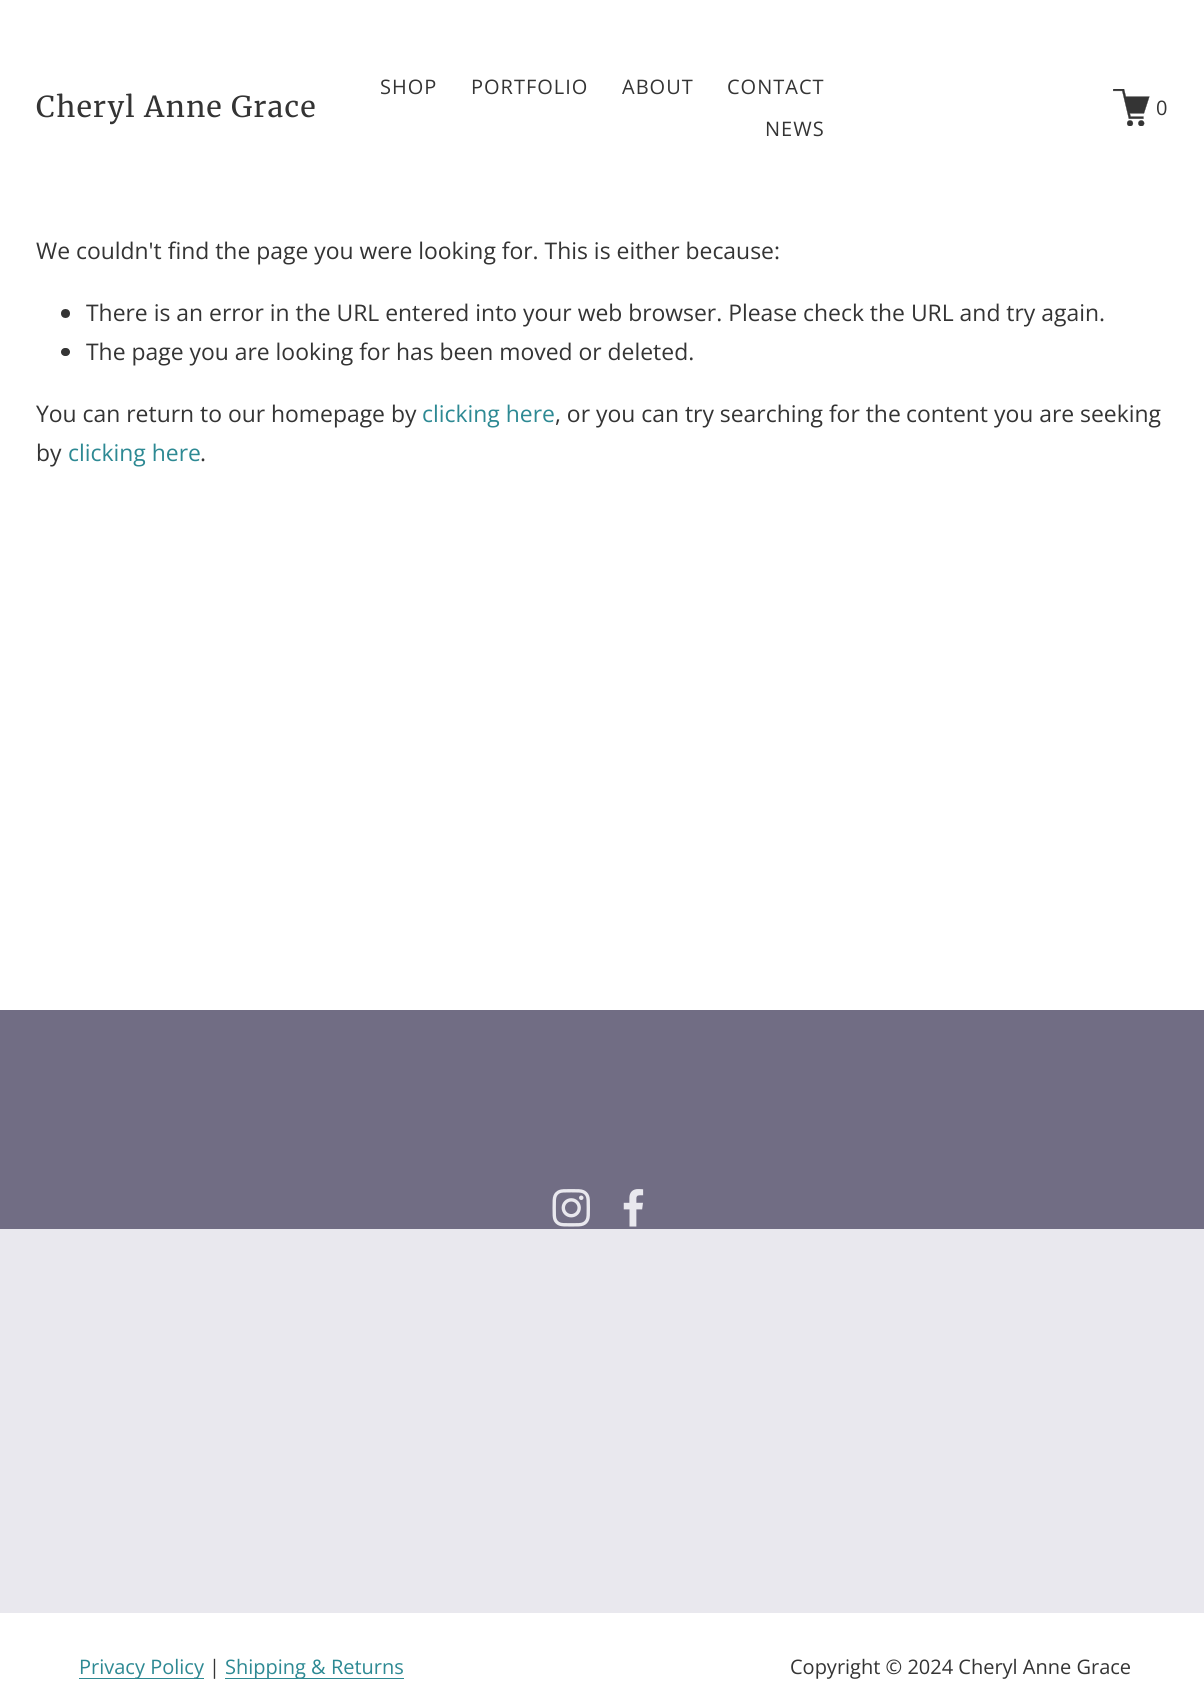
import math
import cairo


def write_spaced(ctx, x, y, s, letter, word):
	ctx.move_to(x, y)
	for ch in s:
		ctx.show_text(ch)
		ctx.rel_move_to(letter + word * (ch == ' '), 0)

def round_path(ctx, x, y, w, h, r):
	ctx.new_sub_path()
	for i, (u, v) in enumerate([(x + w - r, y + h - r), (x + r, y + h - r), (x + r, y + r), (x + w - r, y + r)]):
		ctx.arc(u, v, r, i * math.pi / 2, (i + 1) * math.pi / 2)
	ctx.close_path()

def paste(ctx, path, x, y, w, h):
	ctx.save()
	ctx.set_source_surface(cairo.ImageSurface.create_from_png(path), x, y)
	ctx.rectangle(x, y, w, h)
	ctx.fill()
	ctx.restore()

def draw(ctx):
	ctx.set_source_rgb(1, 1, 1)
	ctx.paint()
	ctx.select_font_face('Merriweather')
	ctx.set_font_size(28.75)
	ctx.set_source_rgb(0.204, 0.204, 0.204)
	write_spaced(ctx, 36, 117, 'Cheryl Anne Grace', 1.4, 0)
	ctx.select_font_face('Open Sans')
	ctx.set_font_size(20)
	for x, y, s in [
		(380, 94, 'SHOP'),
		(471, 94, 'PORTFOLIO'),
		(622, 94, 'ABOUT'),
		(727, 94, 'CONTACT'),
		(765, 136, 'NEWS'),
	]:
		write_spaced(ctx, x, y, s, 1, 0)
	paste(ctx, 'media/1.png', 1113, 89, 37, 37)
	write_spaced(ctx, 1156, 115, '0', 1, 0)
	ctx.set_font_size(22.9)
	ctx.move_to(36, 259)
	ctx.show_text('We couldn\'t find the page you were looking for. This is either because:')
	ctx.new_path()
	ctx.arc(65.5, 313.5, 4.5, 0, 2 * math.pi)
	ctx.fill()
	ctx.move_to(86, 321)
	ctx.show_text('There is an error in the URL entered into your web browser. Please check the URL and try again.')
	round_path(ctx, 61, 348, 9, 8, 4)
	ctx.fill()
	ctx.move_to(86, 360)
	ctx.show_text('The page you are looking for has been moved or deleted.')
	ctx.move_to(36, 422)
	ctx.show_text('You can return to our homepage by')
	ctx.set_source_rgb(0.176, 0.537, 0.576)
	ctx.move_to(422, 422)
	ctx.show_text('clicking here')
	ctx.set_source_rgb(0.204, 0.204, 0.204)
	for x, y, s in [
		(555, 422, ', or you can try searching for the'),
		(906, 422, 'content you are seeking'),
		(36, 461, 'by'),
	]:
		ctx.move_to(x, y)
		ctx.show_text(s)
	ctx.set_source_rgb(0.176, 0.537, 0.576)
	ctx.move_to(68, 461)
	ctx.show_text('clicking here')
	ctx.set_source_rgb(0.204, 0.204, 0.204)
	ctx.move_to(200, 461)
	ctx.show_text('.')
	ctx.set_source_rgb(0.443, 0.427, 0.518)
	ctx.rectangle(0, 1010, 1204, 219)
	ctx.fill()
	paste(ctx, 'media/2.png', 552, 1189, 38, 38)
	paste(ctx, 'media/3.png', 623, 1189, 21, 38)
	ctx.set_source_rgb(0.914, 0.91, 0.933)
	ctx.rectangle(0, 1229, 1204, 384)
	ctx.fill()
	ctx.set_source_rgb(0.176, 0.537, 0.576)
	ctx.rectangle(79, 1678, 125, 1)
	ctx.fill()
	ctx.set_font_size(20)
	ctx.move_to(79, 1674)
	ctx.show_text('Privacy Policy')
	ctx.set_source_rgb(0.204, 0.204, 0.204)
	ctx.move_to(209, 1674)
	ctx.show_text('|')
	ctx.set_source_rgb(0.176, 0.537, 0.576)
	ctx.rectangle(225, 1678, 179, 1)
	ctx.fill()
	ctx.move_to(225, 1674)
	ctx.show_text('Shipping & Returns')
	ctx.set_source_rgb(0.204, 0.204, 0.204)
	ctx.move_to(790, 1674)
	ctx.show_text('Copyright © 2024 Cheryl Anne Grace')


surface = cairo.ImageSurface(cairo.FORMAT_RGB24, 1204, 1701)
ctx = cairo.Context(surface)
options = cairo.FontOptions()
options.set_hint_metrics(cairo.HINT_METRICS_OFF)
options.set_hint_style(cairo.HINT_STYLE_NONE)
ctx.set_font_options(options)
ctx.set_miter_limit(4)
draw(ctx)
surface.write_to_png('image.png')
